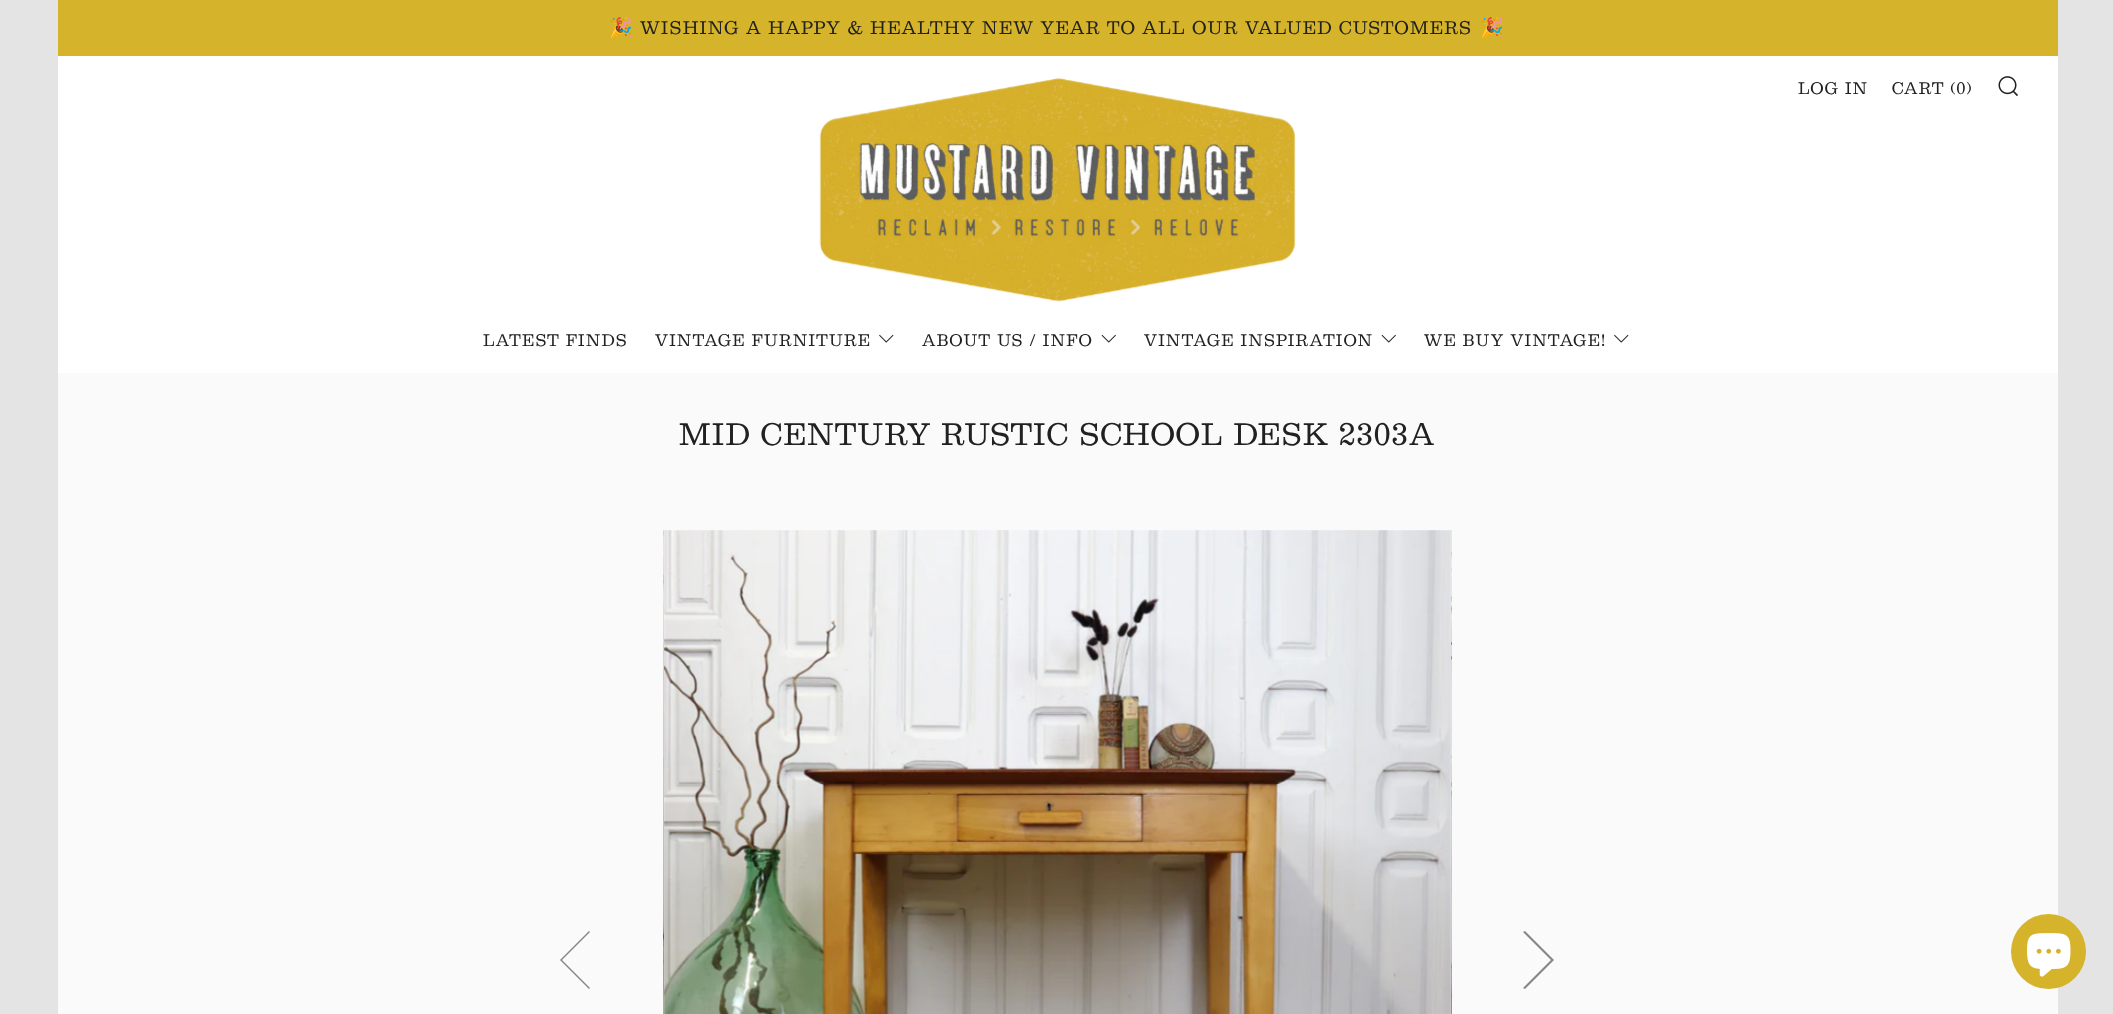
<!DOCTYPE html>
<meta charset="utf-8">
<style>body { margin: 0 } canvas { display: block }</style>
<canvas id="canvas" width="2113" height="1014"></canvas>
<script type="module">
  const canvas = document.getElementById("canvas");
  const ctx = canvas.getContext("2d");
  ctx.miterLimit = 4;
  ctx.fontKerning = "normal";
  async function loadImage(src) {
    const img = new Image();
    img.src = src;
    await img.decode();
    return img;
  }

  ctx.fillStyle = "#e4e4e4";
  ctx.fillRect(0, 0, 2113, 1014);
  ctx.fillStyle = "#ffffff";
  ctx.fillRect(58, 56, 2000, 317);
  ctx.fillStyle = "#d5b32a";
  ctx.fillRect(58, 0, 2000, 56);
  ctx.letterSpacing = "1.25px";
  ctx.font = "19.1px Noto Color Emoji";
  ctx.fillStyle = "#212121";
  ctx.fillText("🎉", 609, 34);
  ctx.font = "19.1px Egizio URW";
  ctx.fillText("WISHING A HAPPY & HEALTHY NEW YEAR TO ALL OUR VALUED CUSTOMERS", 640, 34);
  ctx.font = "19.1px Noto Color Emoji";
  ctx.fillText("🎉", 1480, 34);
  ctx.drawImage(await loadImage("img1.png"), 819, 78, 477, 224);
  ctx.font = "17.5px Egizio URW";
  ctx.fillText("LOG IN", 1798, 94);
  ctx.fillText("CART (0)", 1892, 94);
  ctx.drawImage(await loadImage("img2.png"), 1998, 76, 20, 20);
  ctx.fillText("LATEST FINDS", 483, 346);
  ctx.fillText("VINTAGE FURNITURE", 655, 346);
  ctx.drawImage(await loadImage("img3.png"), 879, 334, 15, 9);
  ctx.fillText("ABOUT US / INFO", 922, 346);
  ctx.drawImage(await loadImage("img4.png"), 1101, 334, 15, 9);
  ctx.fillText("VINTAGE INSPIRATION", 1144, 346);
  ctx.drawImage(await loadImage("img4.png"), 1381, 334, 15, 9);
  ctx.fillText("WE BUY VINTAGE!", 1424, 346);
  ctx.drawImage(await loadImage("img3.png"), 1614, 334, 15, 9);
  ctx.fillStyle = "#fafafa";
  ctx.fillRect(58, 373, 2000, 641);
  ctx.font = "32.5px Egizio URW";
  ctx.fillStyle = "#212121";
  ctx.fillText("MID CENTURY RUSTIC SCHOOL DESK 2303A", 679, 445);
  ctx.fillStyle = "#868686";
  ctx.beginPath();
  ctx.moveTo(590, 932);
  ctx.lineTo(589, 931);
  ctx.lineTo(560, 960);
  ctx.lineTo(589, 989);
  ctx.lineTo(590, 988);
  ctx.lineTo(562, 960);
  ctx.closePath();
  ctx.fill();
  ctx.drawImage(await loadImage("img5.png"), 663, 530, 1, 484);
  ctx.drawImage(await loadImage("img6.png"), 664, 530, 788, 484);
  ctx.drawImage(await loadImage("img7.png"), 1451, 552, 1, 462);
  ctx.beginPath();
  ctx.moveTo(1523, 988);
  ctx.lineTo(1525, 989);
  ctx.lineTo(1554, 960);
  ctx.lineTo(1525, 931);
  ctx.lineTo(1523, 932);
  ctx.lineTo(1551, 960);
  ctx.closePath();
  ctx.fill();
  ctx.fillStyle = "#d5b32a";
  ctx.beginPath();
  ctx.arc(2048.5, 951.5, 37.5, 0, Math.PI * 2);
  ctx.fill();
  ctx.drawImage(await loadImage("img8.png"), 2027, 933, 44, 44);
</script>
